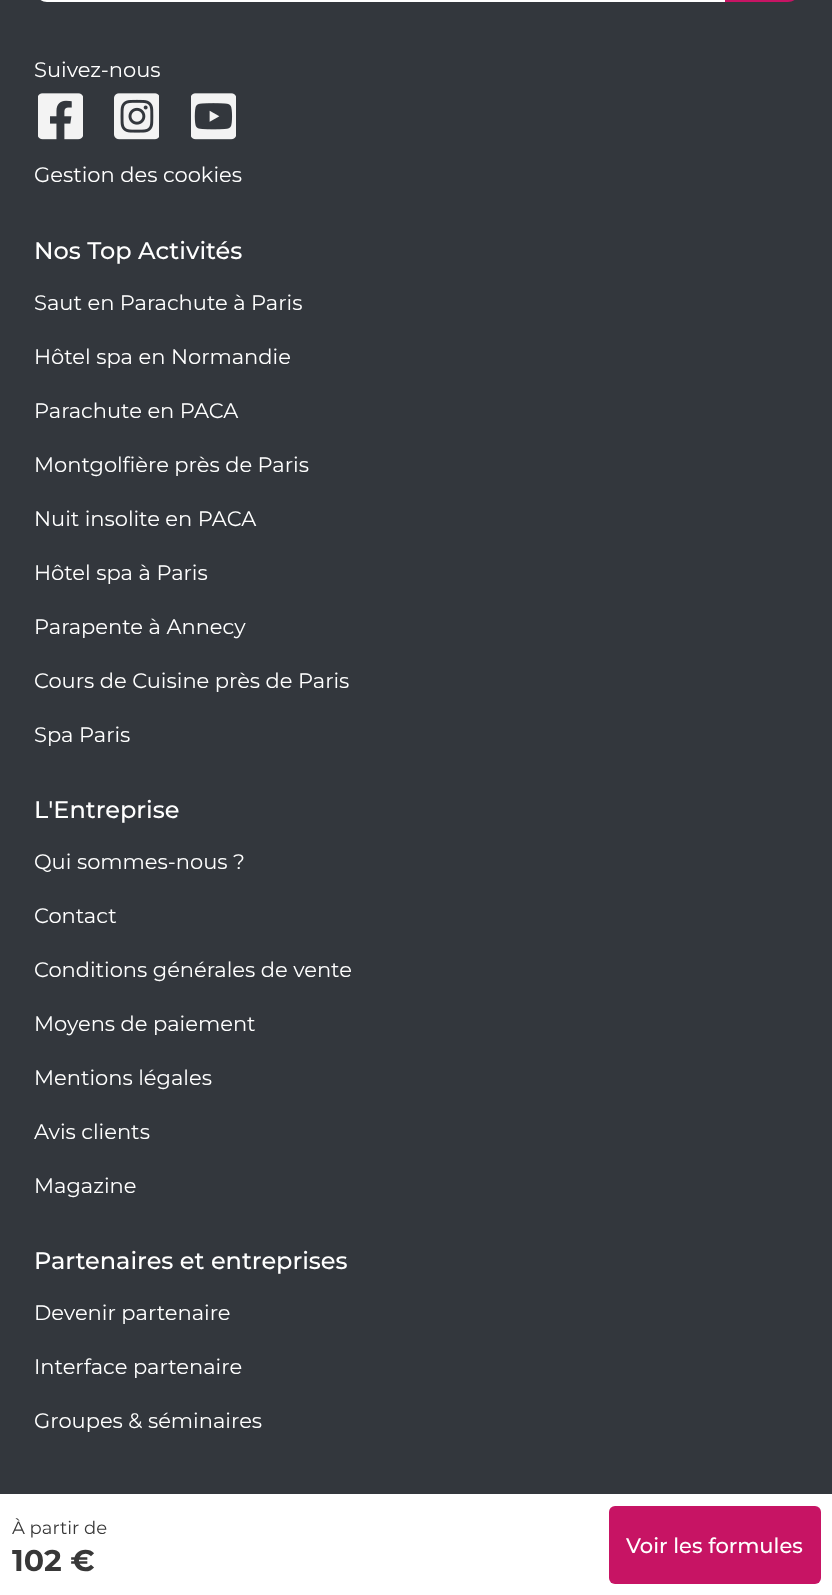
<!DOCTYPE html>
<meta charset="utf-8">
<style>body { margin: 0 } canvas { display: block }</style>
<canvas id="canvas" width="832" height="1595"></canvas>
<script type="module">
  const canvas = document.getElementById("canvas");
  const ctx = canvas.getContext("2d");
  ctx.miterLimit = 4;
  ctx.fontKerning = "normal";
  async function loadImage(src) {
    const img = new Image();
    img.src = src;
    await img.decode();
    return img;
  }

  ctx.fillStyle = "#33373d";
  ctx.fillRect(0, 0, 832, 1595);
  ctx.fillStyle = "#ffffff";
  ctx.beginPath();
  ctx.moveTo(47, -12);
  ctx.lineTo(725, -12);
  ctx.lineTo(725, 2);
  ctx.lineTo(47, 2);
  ctx.bezierCurveTo(40.5, 2, 35, -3.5, 35, -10);
  ctx.lineTo(35, 0);
  ctx.bezierCurveTo(35, -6.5, 40.5, -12, 47, -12);
  ctx.closePath();
  ctx.fill();
  ctx.fillStyle = "#c71464";
  ctx.beginPath();
  ctx.moveTo(725, -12);
  ctx.lineTo(788, -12);
  ctx.bezierCurveTo(794.5, -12, 800, -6.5, 800, 0);
  ctx.lineTo(800, -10);
  ctx.bezierCurveTo(800, -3.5, 794.5, 2, 788, 2);
  ctx.lineTo(725, 2);
  ctx.closePath();
  ctx.fill();
  ctx.font = "21px Montserrat";
  ctx.fillStyle = "#ffffff";
  ctx.fillText("Suivez-nous", 34, 77);
  ctx.drawImage(await loadImage("img1.png"), 38, 93, 45, 47);
  ctx.drawImage(await loadImage("img2.png"), 114, 93, 45, 47);
  ctx.drawImage(await loadImage("img3.png"), 191, 93, 45, 47);
  ctx.fillText("Gestion des cookies", 34, 182);
  ctx.font = "500 24px Montserrat";
  ctx.fillText("Nos Top Activités", 34, 259);
  ctx.font = "21px Montserrat";
  ctx.fillText("Saut en Parachute à Paris", 34, 310);
  ctx.fillText("Hôtel spa en Normandie", 34, 364);
  ctx.fillText("Parachute en PACA", 34, 418);
  ctx.fillText("Montgolfière près de Paris", 34, 472);
  ctx.fillText("Nuit insolite en PACA", 34, 526);
  ctx.fillText("Hôtel spa à Paris", 34, 580);
  ctx.fillText("Parapente à Annecy", 34, 634);
  ctx.fillText("Cours de Cuisine près de Paris", 34, 688);
  ctx.fillText("Spa Paris", 34, 742);
  ctx.font = "500 24px Montserrat";
  ctx.fillText("L'Entreprise", 34, 818);
  ctx.font = "21px Montserrat";
  ctx.fillText("Qui sommes-nous ?", 34, 869);
  ctx.fillText("Contact", 34, 923);
  ctx.fillText("Conditions générales de vente", 34, 977);
  ctx.fillText("Moyens de paiement", 34, 1031);
  ctx.fillText("Mentions légales", 34, 1085);
  ctx.fillText("Avis clients", 34, 1139);
  ctx.fillText("Magazine", 34, 1193);
  ctx.font = "500 24px Montserrat";
  ctx.fillText("Partenaires et entreprises", 34, 1269);
  ctx.font = "21px Montserrat";
  ctx.fillText("Devenir partenaire", 34, 1320);
  ctx.fillText("Interface partenaire", 34, 1374);
  ctx.fillText("Groupes & séminaires", 34, 1428);
  ctx.fillRect(0, 1494, 832, 101);
  ctx.font = "18px Montserrat";
  ctx.fillStyle = "#383838";
  ctx.fillText("À partir de", 12, 1534);
  ctx.font = "bold 30px Montserrat";
  ctx.fillText("102 €", 12, 1571);
  ctx.fillStyle = "#c71464";
  ctx.beginPath();
  ctx.roundRect(609, 1506, 212, 78, 6);
  ctx.fill();
  ctx.font = "500 21px Montserrat";
  ctx.fillStyle = "#ffffff";
  ctx.fillText("Voir les formules", 626, 1553);
</script>
